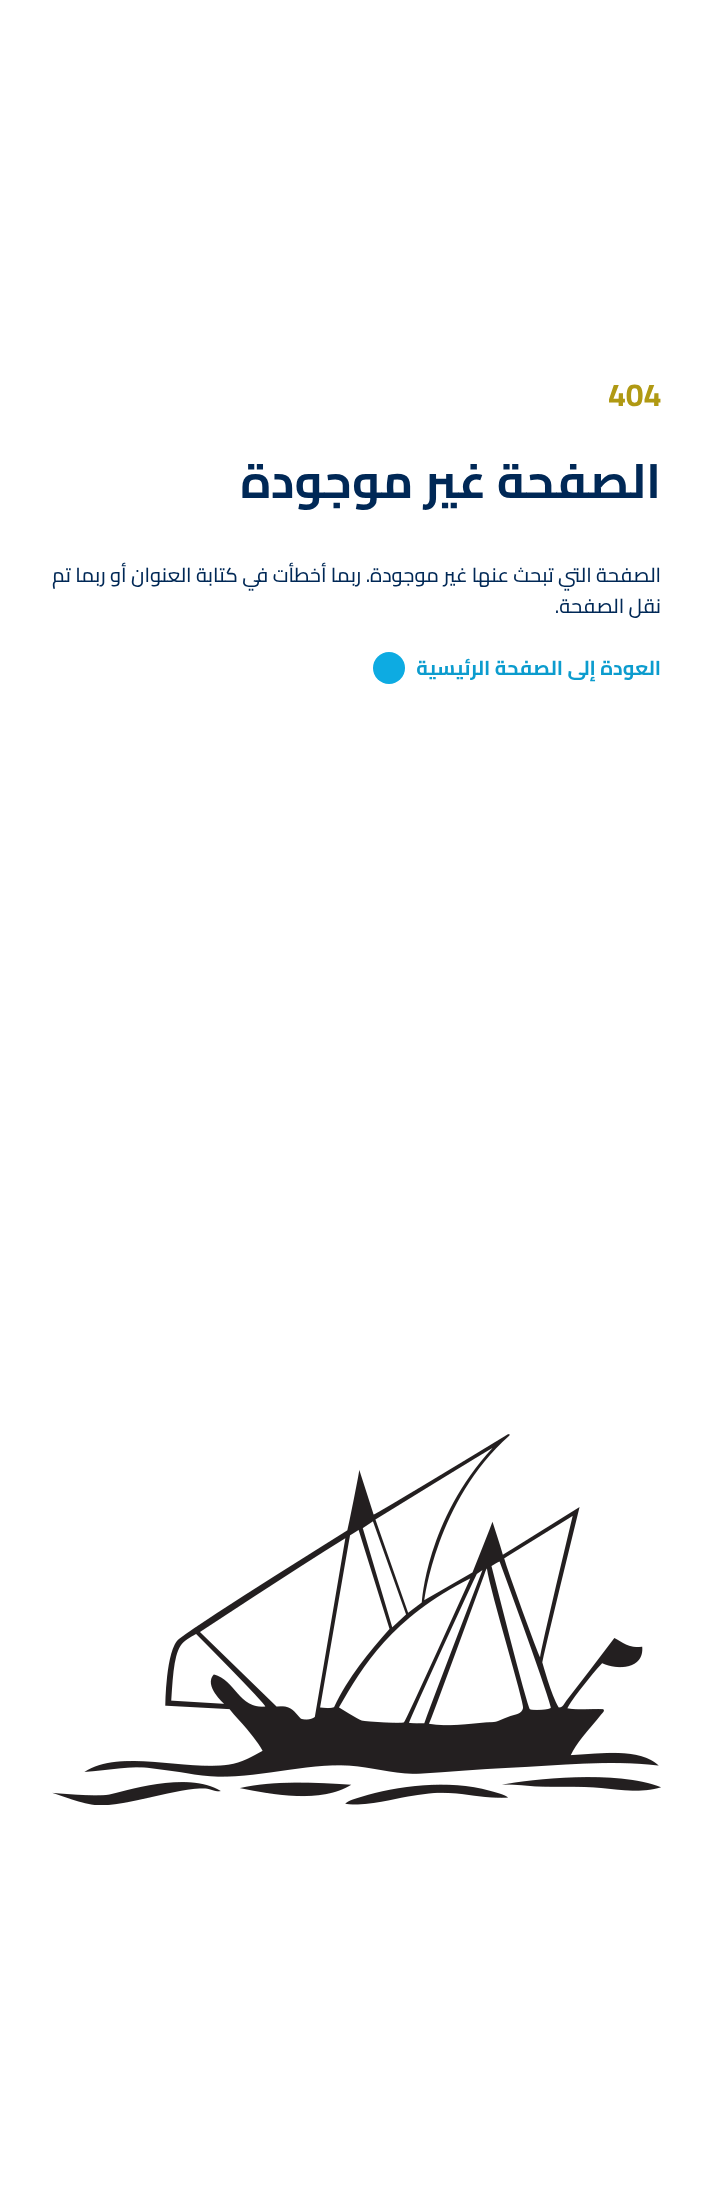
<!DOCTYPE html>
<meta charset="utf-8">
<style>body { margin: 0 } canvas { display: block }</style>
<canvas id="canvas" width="713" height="2189"></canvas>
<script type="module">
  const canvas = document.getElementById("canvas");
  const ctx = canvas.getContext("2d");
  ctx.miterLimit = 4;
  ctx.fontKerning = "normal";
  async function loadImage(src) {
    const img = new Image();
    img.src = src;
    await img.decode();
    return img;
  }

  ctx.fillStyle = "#ffffff";
  ctx.fillRect(0, 0, 713, 2189);
  ctx.font = "bold 32px Cairo";
  ctx.fillStyle = "#b09913";
  ctx.fillText("404", 608, 406);
  ctx.direction = "rtl";
  ctx.font = "bold 48px Cairo";
  ctx.fillStyle = "#002856";
  ctx.fillText("الصفحة غير موجودة", 661, 498);
  ctx.font = "500 20px Cairo";
  ctx.fillText("الصفحة التي تبحث عنها غير موجودة. ربما أخطأت في كتابة العنوان أو ربما تم", 661, 582);
  ctx.fillText("نقل الصفحة.", 661, 613);
  ctx.font = "bold 20px Cairo";
  ctx.fillStyle = "#0c9cce";
  ctx.fillText("العودة إلى الصفحة الرئيسية", 661, 675);
  ctx.fillStyle = "#0dabe2";
  ctx.beginPath();
  ctx.arc(389, 668, 16, 0, Math.PI * 2);
  ctx.fill();
  ctx.drawImage(await loadImage("img1.png"), 52, 1434, 609, 371);
</script>
